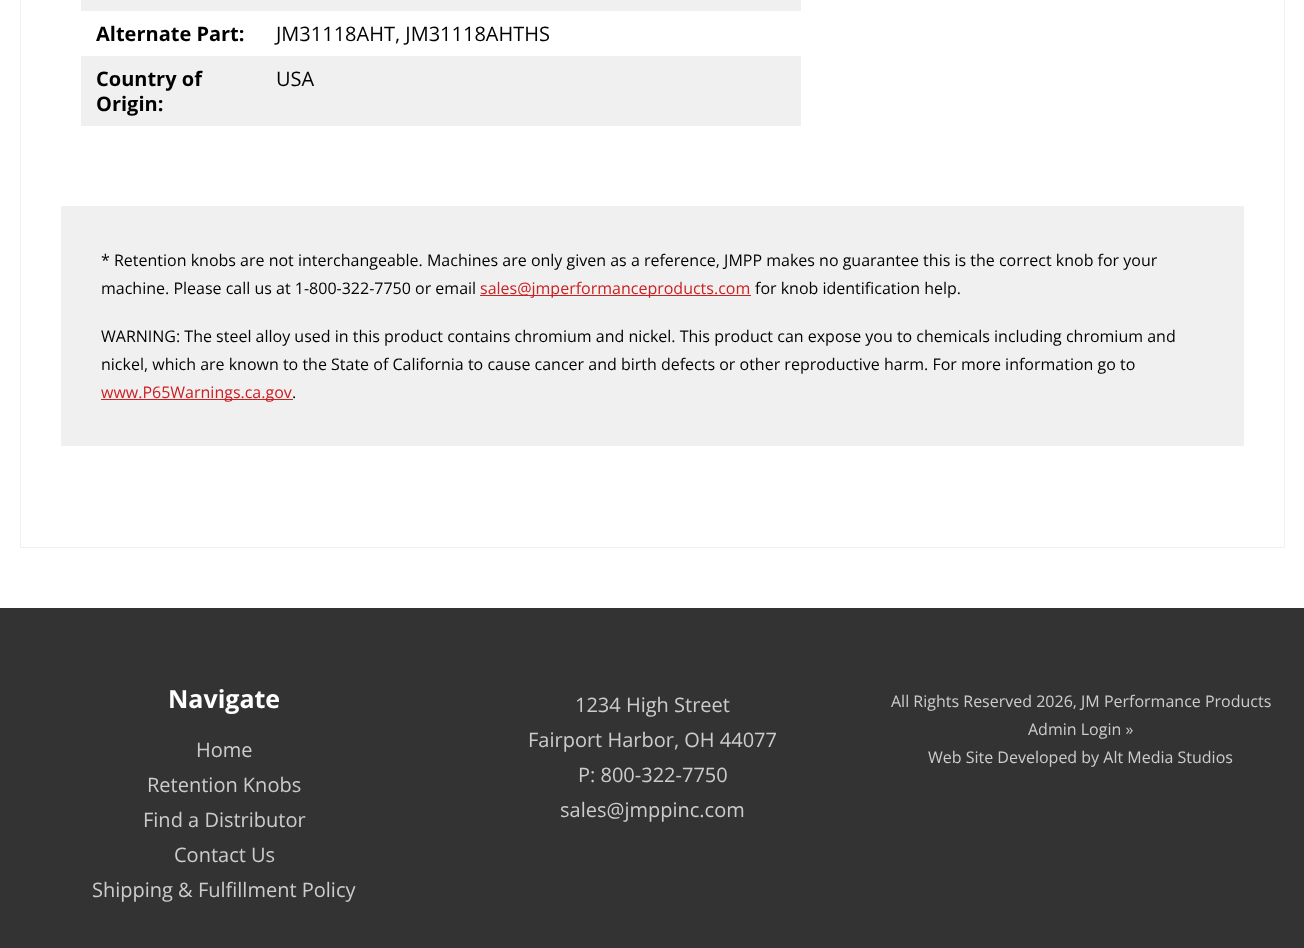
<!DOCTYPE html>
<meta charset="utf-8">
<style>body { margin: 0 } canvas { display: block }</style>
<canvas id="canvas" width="1304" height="948"></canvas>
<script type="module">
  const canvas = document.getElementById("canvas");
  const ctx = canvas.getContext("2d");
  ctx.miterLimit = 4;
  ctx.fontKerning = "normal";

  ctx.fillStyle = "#ffffff";
  ctx.fillRect(0, 0, 1304, 948);
  ctx.strokeStyle = "#f0f0f0";
  ctx.strokeRect(20.5, -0.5, 1264, 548);
  ctx.fillStyle = "#f0f0f0";
  ctx.fillRect(81, 0, 720, 11);
  ctx.font = "bold 20px Open Sans";
  ctx.fillStyle = "#000000";
  ctx.fillText("Alternate Part:", 96, 41);
  ctx.font = "20px Open Sans";
  ctx.fillText("JM31118AHT, JM31118AHTHS", 276, 41);
  ctx.fillStyle = "#f0f0f0";
  ctx.fillRect(81, 56, 720, 70);
  ctx.font = "bold 20px Open Sans";
  ctx.fillStyle = "#000000";
  ctx.fillText("Country of", 96, 86);
  ctx.fillText("Origin:", 96, 111);
  ctx.font = "20px Open Sans";
  ctx.fillText("USA", 276, 86);
  ctx.fillStyle = "#f0f0f0";
  ctx.fillRect(61, 206, 1183, 240);
  ctx.font = "16px Open Sans";
  ctx.fillStyle = "#000000";
  ctx.fillText("* Retention knobs are not interchangeable. Machines are only given as a reference, JMPP makes no guarantee this is the correct knob for your", 101, 266);
  ctx.fillText("machine. Please call us at 1-800-322-7750 or email", 101, 294);
  ctx.fillStyle = "#cc2023";
  ctx.fillRect(480, 295, 271, 1);
  ctx.fillText("sales@jmperformanceproducts.com", 480, 294);
  ctx.fillStyle = "#000000";
  ctx.fillText("for knob identification help.", 755, 294);
  ctx.fillText("WARNING: The steel alloy used in this product contains chromium and nickel. This product can expose you to chemicals including chromium and", 101, 342);
  ctx.fillText("nickel, which are known to the State of California to cause cancer and birth defects or other reproductive harm. For more information go to", 101, 370);
  ctx.fillStyle = "#cc2023";
  ctx.fillRect(101, 399, 192, 1);
  ctx.fillText("www.P65Warnings.ca.gov", 101, 398);
  ctx.fillStyle = "#000000";
  ctx.fillText(".", 292, 398);
  ctx.fillStyle = "#333333";
  ctx.fillRect(0, 608, 1304, 340);
  ctx.font = "bold 25px Open Sans";
  ctx.fillStyle = "#ffffff";
  ctx.fillText("Navigate", 168, 708);
  ctx.font = "20px Open Sans";
  ctx.fillStyle = "#cccccc";
  ctx.fillText("Home", 196, 757);
  ctx.fillText("Retention Knobs", 147, 792);
  ctx.fillText("Find a Distributor", 143, 827);
  ctx.fillText("Contact Us", 174, 862);
  ctx.fillText("Shipping & Fulfillment Policy", 92, 897);
  ctx.fillText("1234 High Street", 575, 712);
  ctx.fillText("Fairport Harbor, OH 44077", 528, 747);
  ctx.fillText("P: 800-322-7750", 578, 782);
  ctx.fillText("sales@jmppinc.com", 560, 817);
  ctx.font = "16px Open Sans";
  ctx.fillText("All Rights Reserved 2026, JM Performance Products", 891, 707);
  ctx.fillText("Admin Login »", 1028, 735);
  ctx.fillText("Web Site Developed by Alt Media Studios", 928, 763);
</script>
